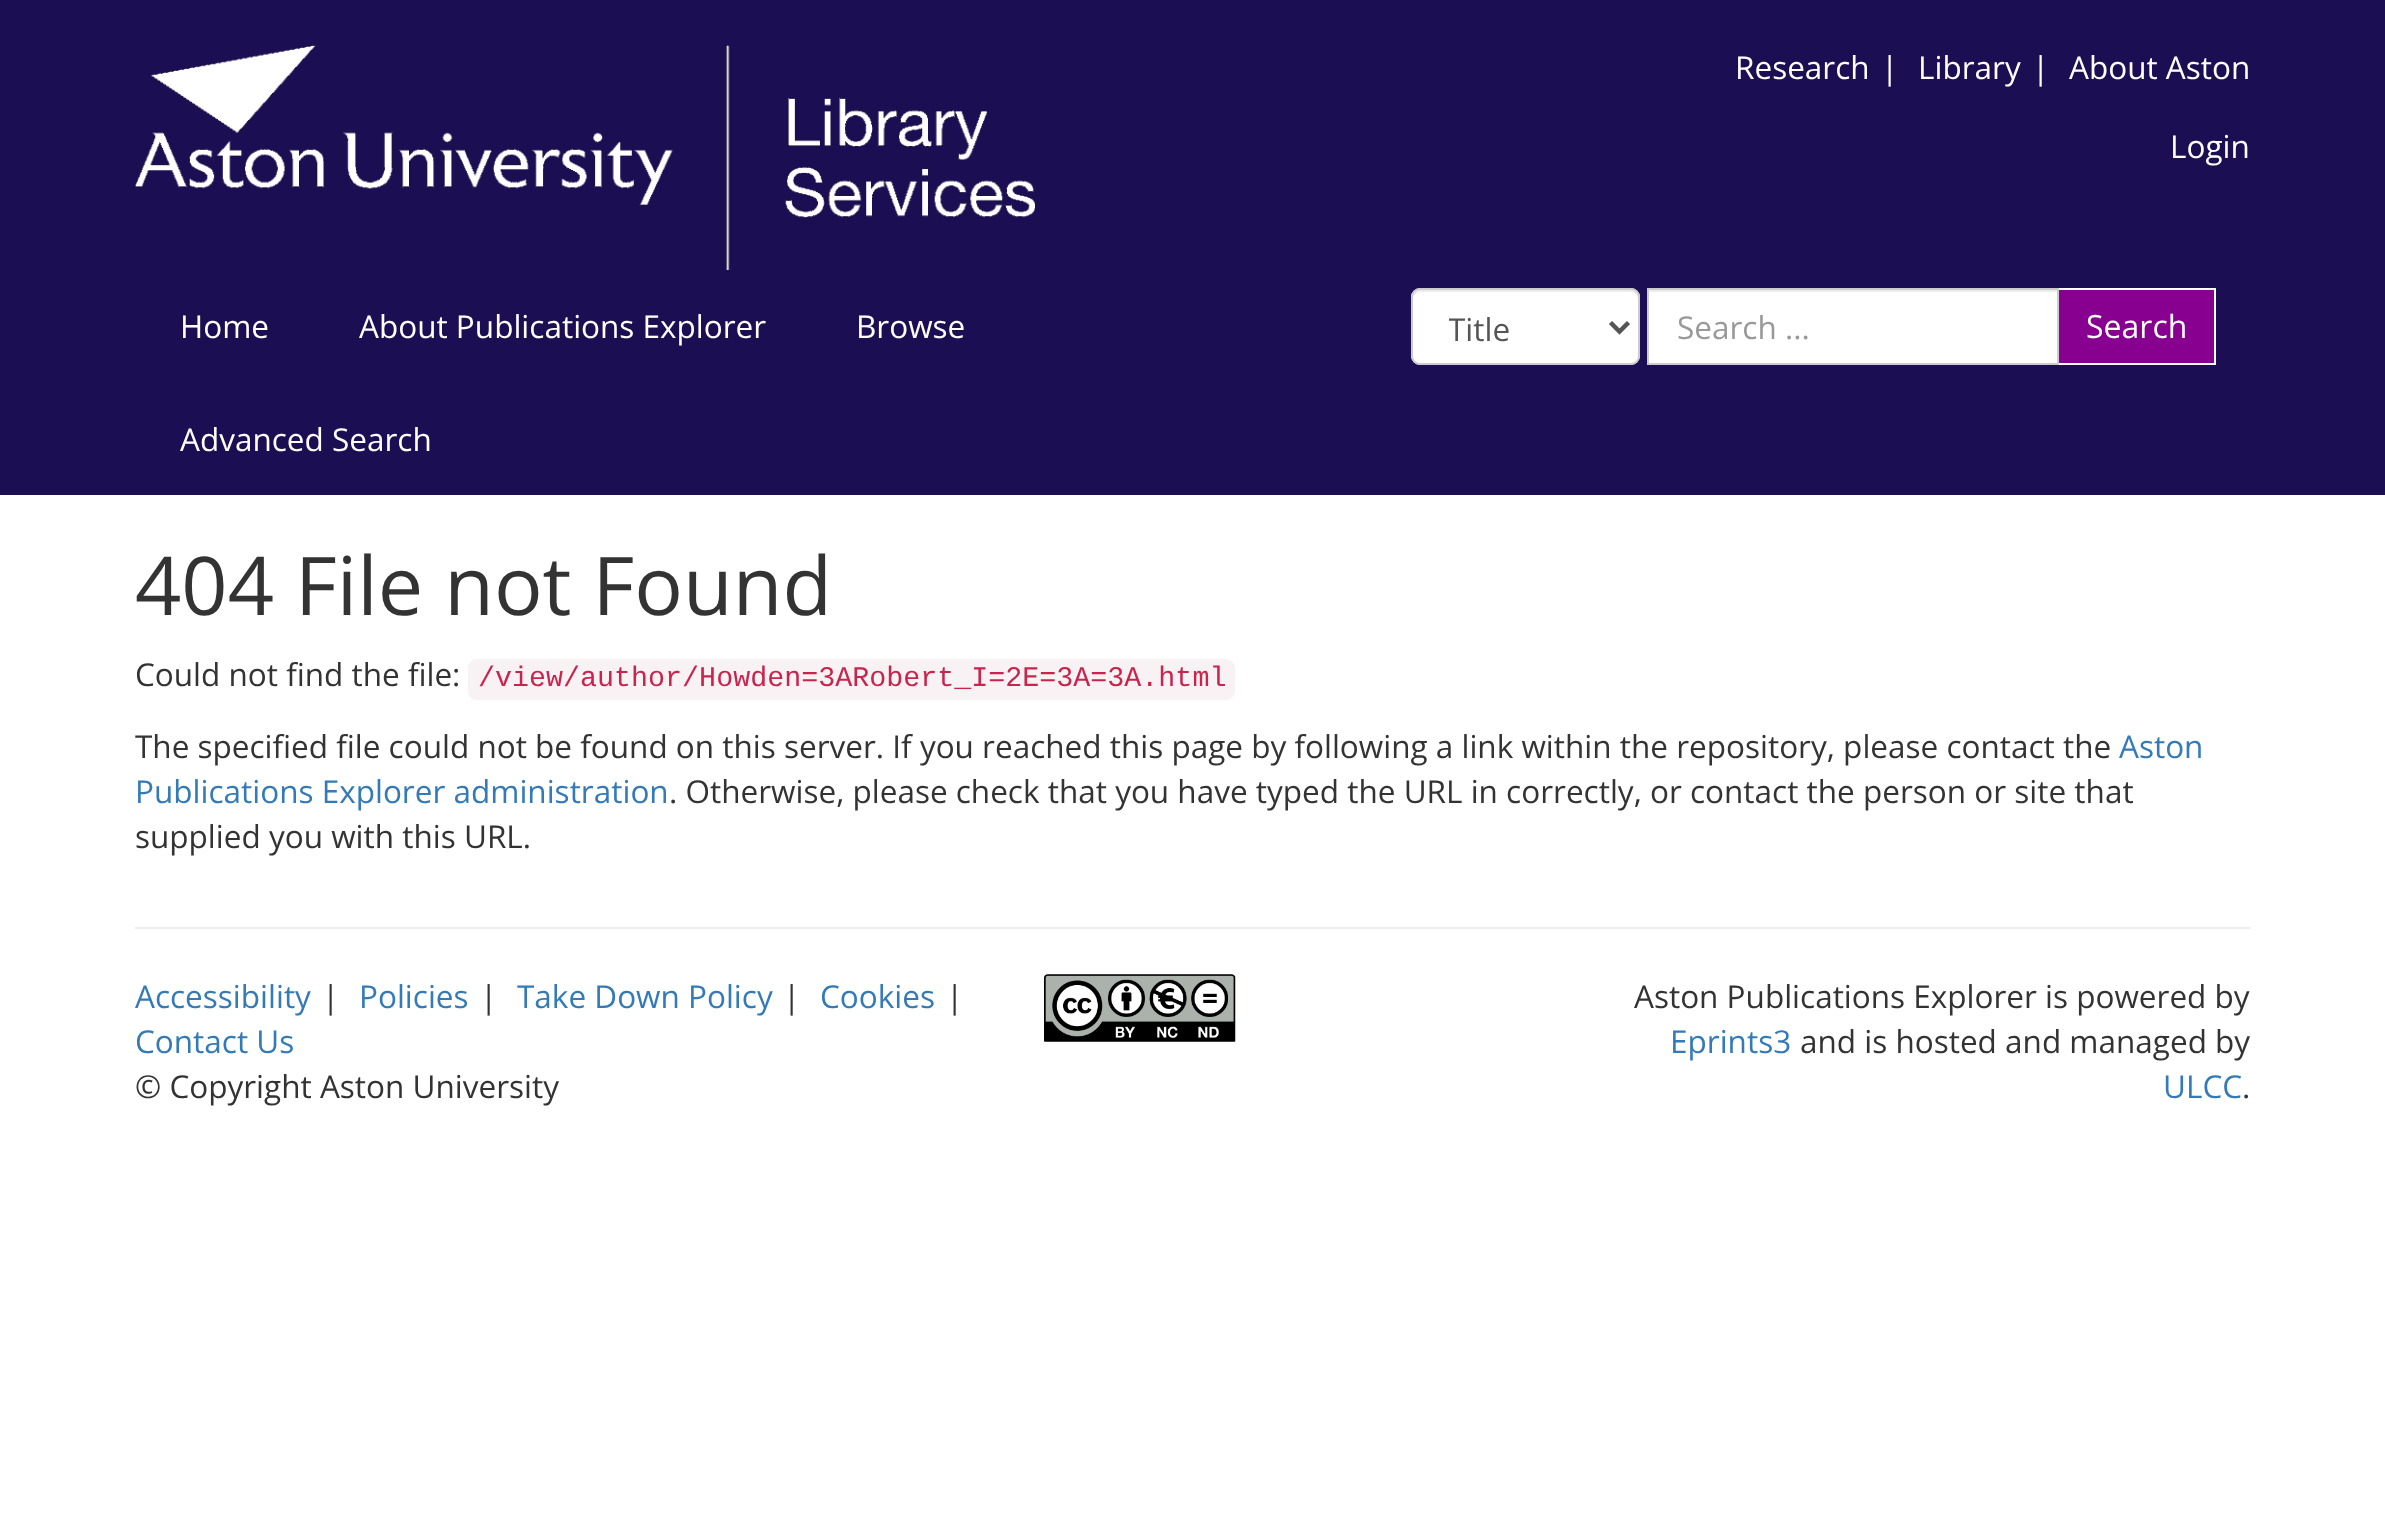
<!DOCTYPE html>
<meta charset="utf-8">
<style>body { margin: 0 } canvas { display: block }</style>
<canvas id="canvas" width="2385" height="1540"></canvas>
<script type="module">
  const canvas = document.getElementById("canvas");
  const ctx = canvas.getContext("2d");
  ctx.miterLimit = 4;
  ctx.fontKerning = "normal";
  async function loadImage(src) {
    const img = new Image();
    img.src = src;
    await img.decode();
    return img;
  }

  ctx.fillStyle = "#ffffff";
  ctx.fillRect(0, 0, 2385, 1540);
  ctx.fillStyle = "#1c0e52";
  ctx.fillRect(0, 0, 2385, 495);
  ctx.drawImage(await loadImage("img1.png"), 135, 45, 900, 225);
  ctx.font = "31.5px Open Sans";
  ctx.fillStyle = "#ffffff";
  ctx.fillText("Research", 1735, 79);
  ctx.fillText("|", 1881, 79);
  ctx.fillText("Library", 1918, 79);
  ctx.fillText("|", 2032, 79);
  ctx.fillText("About Aston", 2069, 79);
  ctx.fillText("Login", 2170, 158);
  ctx.fillText("Home", 180, 338);
  ctx.fillText("About Publications Explorer", 359, 338);
  ctx.fillText("Browse", 856, 338);
  ctx.fillText("Advanced Search", 180, 451);
  ctx.beginPath();
  ctx.roundRect(1411, 288, 229, 77, 9);
  ctx.fill();
  ctx.fillStyle = "#ececec";
  ctx.beginPath();
  ctx.moveTo(1420, 292);
  ctx.lineTo(1631, 292);
  ctx.bezierCurveTo(1635, 292, 1638, 296, 1638, 299);
  ctx.lineTo(1638, 297);
  ctx.bezierCurveTo(1638, 293, 1635, 290, 1631, 290);
  ctx.lineTo(1420, 290);
  ctx.bezierCurveTo(1416, 290, 1413, 293, 1413, 297);
  ctx.lineTo(1413, 299);
  ctx.bezierCurveTo(1413, 296, 1416, 292, 1420, 292);
  ctx.closePath();
  ctx.fill();
  ctx.beginPath();
  ctx.roundRect(1412, 289, 227, 75, 8);
  ctx.strokeStyle = "#cccccc";
  ctx.lineWidth = 2;
  ctx.stroke();
  ctx.beginPath();
  ctx.moveTo(1610.5, 322.5);
  ctx.lineTo(1619.5, 331.5);
  ctx.lineTo(1628.5, 322.5);
  ctx.strokeStyle = "#555555";
  ctx.lineWidth = 4.5;
  ctx.stroke();
  ctx.save();
  ctx.beginPath();
  ctx.rect(1449, 304, 126, 47);
  ctx.clip();
  ctx.fillStyle = "#555555";
  ctx.fillText("Title", 1448, 341);
  ctx.restore();
  ctx.fillStyle = "#ffffff";
  ctx.fillRect(1649, 292, 408, 71);
  ctx.fillStyle = "#ececec";
  ctx.fillRect(1649, 290, 408, 2);
  ctx.fillStyle = "#87008f";
  ctx.beginPath();
  ctx.rect(2058, 289, 157, 75);
  ctx.fill();
  ctx.strokeStyle = "#ffffff";
  ctx.lineWidth = 2;
  ctx.stroke();
  ctx.strokeStyle = "#cccccc";
  ctx.strokeRect(1648, 289, 410, 75);
  ctx.fillStyle = "#999999";
  ctx.fillText("Search ...", 1677, 339);
  ctx.font = "32px Open Sans";
  ctx.fillStyle = "#ffffff";
  ctx.fillText("Search", 2086, 338);
  ctx.font = "81px Open Sans";
  ctx.fillStyle = "#333333";
  ctx.fillText("404 File not Found", 135, 615);
  ctx.font = "31.5px Open Sans";
  ctx.fillText("Could not find the file:", 135, 686);
  ctx.fillStyle = "#f9f2f4";
  ctx.beginPath();
  ctx.roundRect(468, 659, 767, 41, 9);
  ctx.fill();
  ctx.font = "28.35px Liberation Mono";
  ctx.fillStyle = "#c7254e";
  ctx.fillText("/view/author/Howden=3ARobert_I=2E=3A=3A.html", 478, 686);
  ctx.font = "31.5px Open Sans";
  ctx.fillStyle = "#333333";
  ctx.fillText("The specified file could not be found on this server. If you reached this page by following a link within the repository, please contact the", 135, 758);
  ctx.fillStyle = "#337ab7";
  ctx.fillText("Aston", 2119, 758);
  ctx.fillText("Publications Explorer administration", 135, 803);
  ctx.fillStyle = "#333333";
  ctx.fillText(". Otherwise, please check that you have typed the URL in correctly, or contact the person or site that", 669, 803);
  ctx.fillText("supplied you with this URL.", 135, 848);
  ctx.fillStyle = "#eeeeee";
  ctx.fillRect(135, 927, 2115, 2);
  ctx.fillStyle = "#337ab7";
  ctx.fillText("Accessibility", 135, 1008);
  ctx.fillStyle = "#333333";
  ctx.fillText("|", 322, 1008);
  ctx.fillStyle = "#337ab7";
  ctx.fillText("Policies", 359, 1008);
  ctx.fillStyle = "#333333";
  ctx.fillText("|", 480, 1008);
  ctx.fillStyle = "#337ab7";
  ctx.fillText("Take Down Policy", 517, 1008);
  ctx.fillStyle = "#333333";
  ctx.fillText("|", 783, 1008);
  ctx.fillStyle = "#337ab7";
  ctx.fillText("Cookies", 820, 1008);
  ctx.fillStyle = "#333333";
  ctx.fillText("|", 946, 1008);
  ctx.fillStyle = "#337ab7";
  ctx.fillText("Contact Us", 135, 1053);
  ctx.fillStyle = "#333333";
  ctx.fillText("© Copyright Aston University", 135, 1098);
  ctx.drawImage(await loadImage("img2.png"), 1044, 974, 192, 68);
  ctx.fillText("Aston Publications Explorer is powered by", 1634, 1008);
  ctx.fillStyle = "#337ab7";
  ctx.fillText("Eprints3", 1670, 1053);
  ctx.fillStyle = "#333333";
  ctx.fillText("and is hosted and managed by", 1800, 1053);
  ctx.fillStyle = "#337ab7";
  ctx.fillText("ULCC", 2163, 1098);
  ctx.fillStyle = "#333333";
  ctx.fillText(".", 2242, 1098);
</script>
